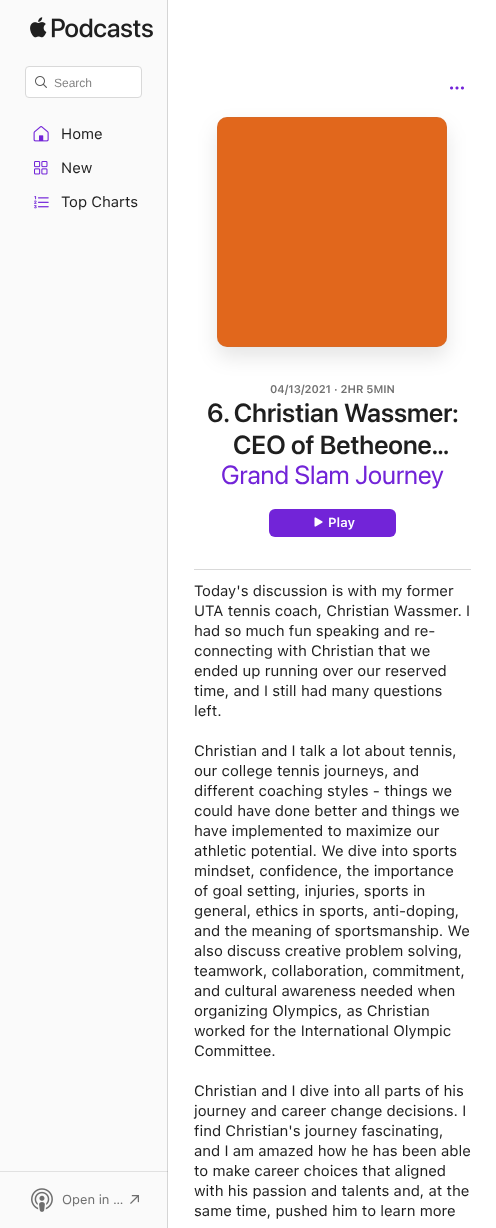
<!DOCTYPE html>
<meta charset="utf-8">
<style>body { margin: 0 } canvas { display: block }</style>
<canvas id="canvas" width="496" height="1228"></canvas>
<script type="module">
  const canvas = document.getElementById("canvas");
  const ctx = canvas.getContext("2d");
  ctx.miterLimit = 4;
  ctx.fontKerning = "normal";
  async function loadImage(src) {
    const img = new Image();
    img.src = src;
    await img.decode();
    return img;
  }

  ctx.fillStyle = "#ffffff";
  ctx.fillRect(0, 0, 496, 1228);
  ctx.fillStyle = "#fafafa";
  ctx.fillRect(0, 0, 167, 1228);
  ctx.fillStyle = "#e1e1e1";
  ctx.fillRect(0, 1171, 168, 1);
  ctx.fillStyle = "#d5d5d5";
  ctx.fillRect(167, 0, 1, 1228);
  ctx.fillStyle = "#c0c0c0";
  ctx.fillRect(167, 1171, 1, 1);
  ctx.drawImage(await loadImage("img1.png"), 30, 17, 123, 21);
  ctx.fillStyle = "#ffffff";
  ctx.beginPath();
  ctx.roundRect(25.5, 66.5, 116, 31, 3.5);
  ctx.fill();
  ctx.strokeStyle = "#d9d9d9";
  ctx.stroke();
  ctx.drawImage(await loadImage("img2.png"), 35, 76, 12, 12);
  ctx.font = "12px Liberation Sans";
  ctx.fillStyle = "#858585";
  ctx.fillText("Search", 54, 87);
  ctx.drawImage(await loadImage("img3.png"), 33, 126, 16, 16);
  ctx.font = "15px 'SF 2'";
  ctx.fillStyle = "#1f1f1f";
  ctx.fillText("Home", 61, 139);
  ctx.drawImage(await loadImage("img4.png"), 34, 161, 14, 14);
  ctx.fillText("New", 61, 173);
  ctx.drawImage(await loadImage("img5.png"), 34, 196, 15, 13);
  ctx.fillText("Top Charts", 61, 207);
  ctx.drawImage(await loadImage("img6.png"), 31, 1188, 22, 24);
  ctx.font = "13px 'SF 2'";
  ctx.fillStyle = "#707070";
  ctx.fillText("Open in …", 62, 1204);
  ctx.drawImage(await loadImage("img7.png"), 130, 1195, 9, 9);
  ctx.drawImage(await loadImage("img8.png"), 450, 86, 14, 4);
  ctx.fillStyle = "rgba(0, 0, 0, 0.1)";
  ctx.filter = "blur(10px)";
  ctx.beginPath();
  ctx.roundRect(217, 127, 230, 230, 10);
  ctx.fill();
  ctx.filter = "none";
  ctx.fillStyle = "#e1671c";
  ctx.beginPath();
  ctx.roundRect(217, 117, 230, 230, 10);
  ctx.fill();
  ctx.beginPath();
  ctx.roundRect(217.5, 117.5, 229, 229, 9.5);
  ctx.strokeStyle = "rgba(128, 128, 128, 0.1)";
  ctx.stroke();
  ctx.font = "600 11px SF";
  ctx.fillStyle = "#707070";
  ctx.fillText("04/13/2021 · 2HR 5MIN", 270, 393);
  ctx.font = "600 26px 'SF 2'";
  ctx.fillStyle = "#1f1f1f";
  ctx.fillText("6. Christian Wassmer:", 207, 422);
  ctx.fillText("CEO of Betheone…", 233, 454);
  ctx.font = "26px SF";
  ctx.fillStyle = "#7224d8";
  ctx.fillText("Grand Slam Journey", 221, 484);
  ctx.beginPath();
  ctx.roundRect(269, 509, 127, 28, 6);
  ctx.fill();
  ctx.drawImage(await loadImage("img9.png"), 314, 517, 9, 10);
  ctx.font = "600 13px SF";
  ctx.fillStyle = "#ffffff";
  ctx.fillText("Play", 328, 527);
  ctx.fillStyle = "#d9d9d9";
  ctx.fillRect(194, 569, 277, 1);
  ctx.font = "15px 'SF 2'";
  ctx.fillStyle = "#1f1f1f";
  ctx.fillText("Today's discussion is with my former", 194, 596);
  ctx.fillText("UTA tennis coach, Christian Wassmer. I", 194, 616);
  ctx.fillText("had so much fun speaking and re-", 194, 636);
  ctx.fillText("connecting with Christian that we", 194, 656);
  ctx.fillText("ended up running over our reserved", 194, 676);
  ctx.fillText("time, and I still had many questions", 194, 696);
  ctx.fillText("left.", 194, 716);
  ctx.fillText("Christian and I talk a lot about tennis,", 194, 756);
  ctx.fillText("our college tennis journeys, and", 194, 776);
  ctx.fillText("different coaching styles - things we", 194, 796);
  ctx.fillText("could have done better and things we", 194, 816);
  ctx.fillText("have implemented to maximize our", 194, 836);
  ctx.fillText("athletic potential. We dive into sports", 194, 856);
  ctx.fillText("mindset, confidence, the importance", 194, 876);
  ctx.fillText("of goal setting, injuries, sports in", 194, 896);
  ctx.fillText("general, ethics in sports, anti-doping,", 194, 916);
  ctx.fillText("and the meaning of sportsmanship. We", 194, 936);
  ctx.fillText("also discuss creative problem solving,", 194, 956);
  ctx.fillText("teamwork, collaboration, commitment,", 194, 976);
  ctx.fillText("and cultural awareness needed when", 194, 996);
  ctx.fillText("organizing Olympics, as Christian", 194, 1016);
  ctx.fillText("worked for the International Olympic", 194, 1036);
  ctx.fillText("Committee.", 194, 1056);
  ctx.fillText("Christian and I dive into all parts of his", 194, 1096);
  ctx.fillText("journey and career change decisions. I", 194, 1116);
  ctx.fillText("find Christian's journey fascinating,", 194, 1136);
  ctx.fillText("and I am amazed how he has been able", 194, 1156);
  ctx.fillText("to make career choices that aligned", 194, 1176);
  ctx.fillText("with his passion and talents and, at the", 194, 1196);
  ctx.fillText("same time, pushed him to learn more", 194, 1216);
</script>
